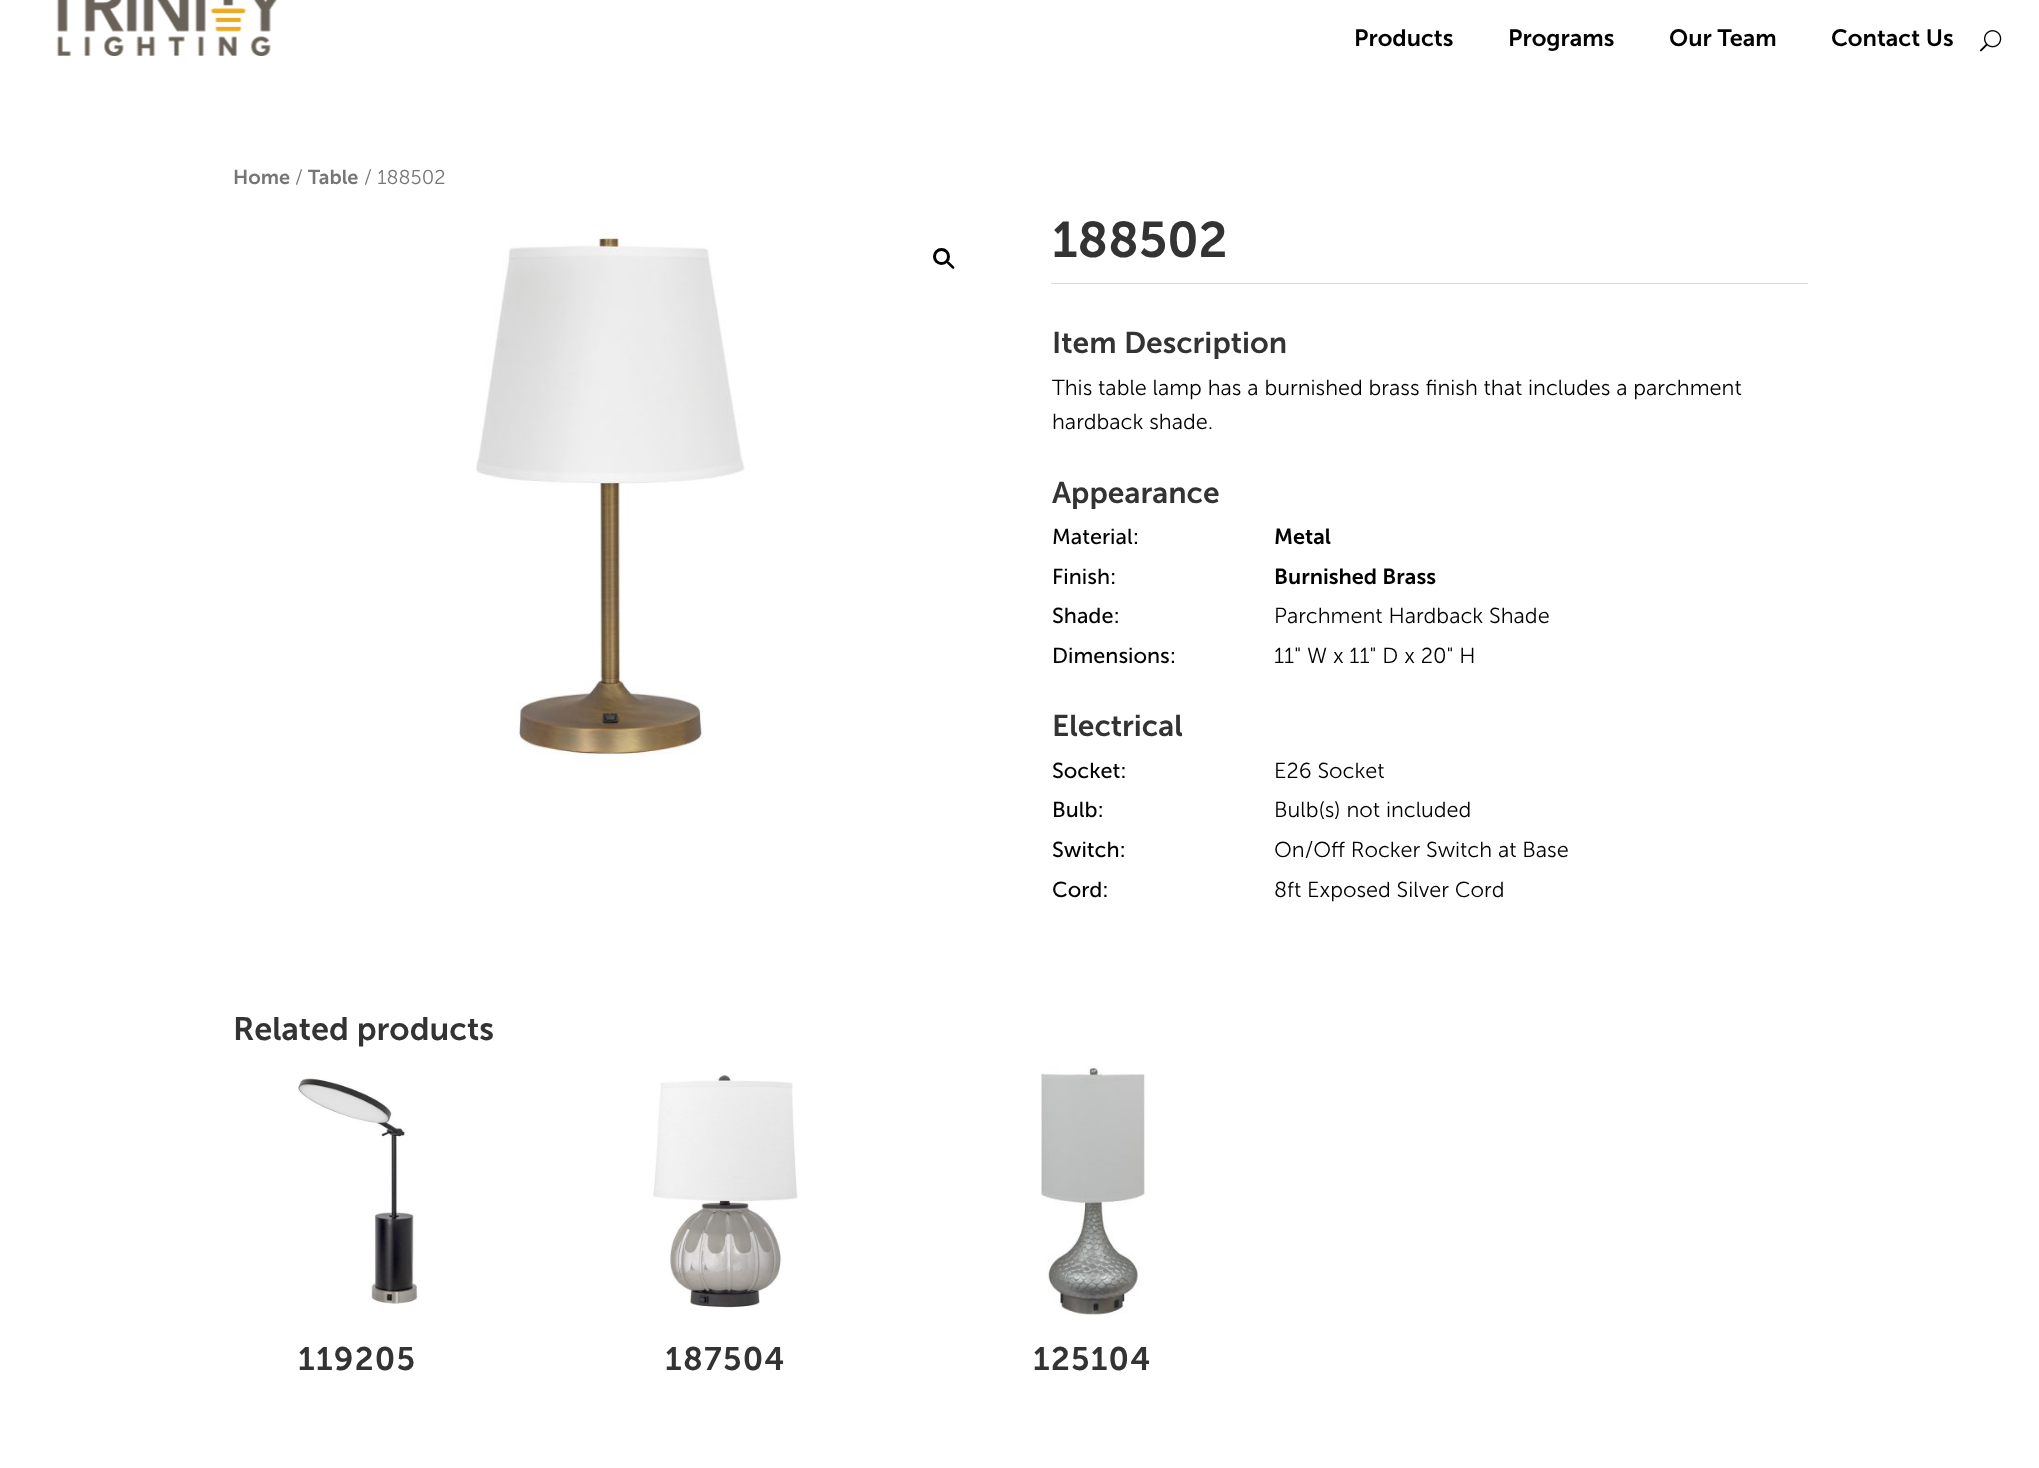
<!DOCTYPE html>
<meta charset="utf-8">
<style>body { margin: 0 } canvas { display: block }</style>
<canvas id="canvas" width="2039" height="1468"></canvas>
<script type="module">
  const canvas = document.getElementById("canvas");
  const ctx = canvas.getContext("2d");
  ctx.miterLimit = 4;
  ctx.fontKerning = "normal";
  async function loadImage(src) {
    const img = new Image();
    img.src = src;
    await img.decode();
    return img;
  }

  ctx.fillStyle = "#ffffff";
  ctx.fillRect(0, 0, 2039, 1468);
  ctx.drawImage(await loadImage("img1.png"), 56, 0, 221, 56);
  ctx.font = "600 23.5px 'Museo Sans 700'";
  ctx.fillStyle = "#000000";
  ctx.fillText("Products", 1354, 46);
  ctx.fillText("Programs", 1508, 46);
  ctx.fillText("Our Team", 1669, 46);
  ctx.fillText("Contact Us", 1831, 46);
  ctx.drawImage(await loadImage("img2.png"), 1980, 30, 22, 22);
  ctx.font = "600 20px 'Museo Sans 700'";
  ctx.fillStyle = "#767676";
  ctx.fillText("Home", 233, 184);
  ctx.font = "300 20px 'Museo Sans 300'";
  ctx.fillText("/", 295, 184);
  ctx.font = "600 20px 'Museo Sans 700'";
  ctx.fillText("Table", 308, 184);
  ctx.font = "300 20px 'Museo Sans 300'";
  ctx.fillText("/ 188502", 364, 184);
  ctx.drawImage(await loadImage("img3.png"), 476, 230, 269, 525);
  ctx.beginPath();
  ctx.arc(941.5, 256.5, 7, 0, Math.PI * 2);
  ctx.strokeStyle = "#000000";
  ctx.lineWidth = 3;
  ctx.stroke();
  ctx.fillStyle = "#000000";
  ctx.beginPath();
  ctx.moveTo(947, 261.5);
  ctx.bezierCurveTo(948.5, 260, 950.5, 263.5, 951.5, 264);
  ctx.bezierCurveTo(952, 265, 955.5, 267, 954, 268.5);
  ctx.bezierCurveTo(952.5, 270, 950.5, 266.5, 949.5, 266);
  ctx.bezierCurveTo(949, 265, 945.5, 263, 947, 261.5);
  ctx.closePath();
  ctx.fill();
  ctx.font = "600 50px 'Museo Sans 700'";
  ctx.fillStyle = "#333333";
  ctx.fillText("188502", 1052, 257);
  ctx.fillStyle = "#dadada";
  ctx.fillRect(1051, 283, 757, 1);
  ctx.font = "600 30px 'Museo Sans 700'";
  ctx.fillStyle = "#333333";
  ctx.fillText("Item Description", 1052, 353);
  ctx.font = "300 21.7px 'Museo Sans 300'";
  ctx.fillStyle = "#000000";
  ctx.fillText("This table lamp has a burnished brass finish that includes a parchment", 1052, 395);
  ctx.fillText("hardback shade.", 1052, 429);
  ctx.font = "600 30px 'Museo Sans 700'";
  ctx.fillStyle = "#333333";
  ctx.fillText("Appearance", 1052, 503);
  ctx.font = "21.7px 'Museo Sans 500'";
  ctx.fillStyle = "#000000";
  ctx.fillText("Material:", 1052, 544);
  ctx.font = "600 21.7px 'Museo Sans 700'";
  ctx.fillText("Metal", 1274, 544);
  ctx.font = "21.7px 'Museo Sans 500'";
  ctx.fillText("Finish:", 1052, 584);
  ctx.font = "600 21.7px 'Museo Sans 700'";
  ctx.fillText("Burnished Brass", 1274, 584);
  ctx.font = "21.7px 'Museo Sans 500'";
  ctx.fillText("Shade:", 1052, 623);
  ctx.font = "300 21.7px 'Museo Sans 300'";
  ctx.fillText("Parchment Hardback Shade", 1274, 623);
  ctx.font = "21.7px 'Museo Sans 500'";
  ctx.fillText("Dimensions:", 1052, 663);
  ctx.font = "300 21.7px 'Museo Sans 300'";
  ctx.fillText("11\" W x 11\" D x 20\" H", 1274, 663);
  ctx.font = "600 30px 'Museo Sans 700'";
  ctx.fillStyle = "#333333";
  ctx.fillText("Electrical", 1052, 736);
  ctx.font = "21.7px 'Museo Sans 500'";
  ctx.fillStyle = "#000000";
  ctx.fillText("Socket:", 1052, 778);
  ctx.font = "300 21.7px 'Museo Sans 300'";
  ctx.fillText("E26 Socket", 1274, 778);
  ctx.font = "21.7px 'Museo Sans 500'";
  ctx.fillText("Bulb:", 1052, 817);
  ctx.font = "300 21.7px 'Museo Sans 300'";
  ctx.fillText("Bulb(s) not included", 1274, 817);
  ctx.font = "21.7px 'Museo Sans 500'";
  ctx.fillText("Switch:", 1052, 857);
  ctx.font = "300 21.7px 'Museo Sans 300'";
  ctx.fillText("On/Off Rocker Switch at Base", 1274, 857);
  ctx.font = "21.7px 'Museo Sans 500'";
  ctx.fillText("Cord:", 1052, 897);
  ctx.font = "300 21.7px 'Museo Sans 300'";
  ctx.fillText("8ft Exposed Silver Cord", 1274, 897);
  ctx.font = "600 32.5px 'Museo Sans 700'";
  ctx.fillStyle = "#333333";
  ctx.fillText("Related products", 233, 1040);
  ctx.drawImage(await loadImage("img4.png"), 298, 1078, 120, 226);
  ctx.letterSpacing = "1.25px";
  ctx.fillText("119205", 298, 1370);
  ctx.drawImage(await loadImage("img5.png"), 653, 1074, 145, 234);
  ctx.fillText("187504", 665, 1370);
  ctx.drawImage(await loadImage("img6.png"), 1041, 1066, 106, 250);
  ctx.fillText("125104", 1033, 1370);
</script>
